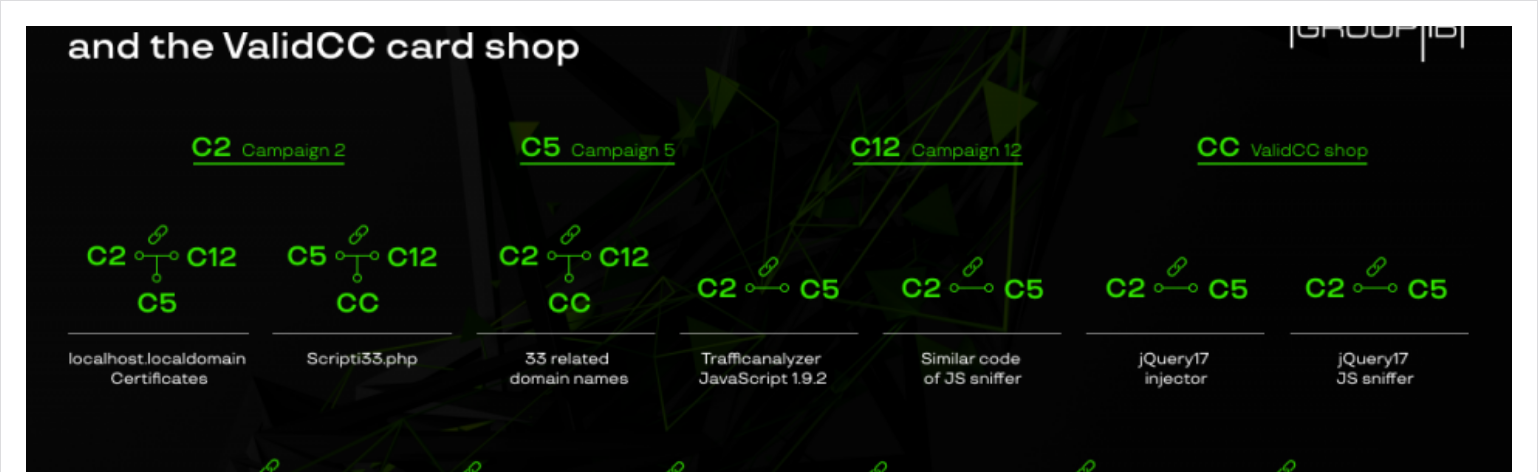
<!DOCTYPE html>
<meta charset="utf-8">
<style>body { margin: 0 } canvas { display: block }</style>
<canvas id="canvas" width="1538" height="472"></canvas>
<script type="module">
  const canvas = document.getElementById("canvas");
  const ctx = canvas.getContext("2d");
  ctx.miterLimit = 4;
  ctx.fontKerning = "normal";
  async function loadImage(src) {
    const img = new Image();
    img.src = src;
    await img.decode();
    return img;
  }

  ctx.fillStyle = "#ffffff";
  ctx.fillRect(0, 0, 1538, 472);
  ctx.strokeStyle = "#dcdcde";
  ctx.strokeRect(0.5, 0.5, 1537, 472);
  ctx.drawImage(await loadImage("img1.png"), 26, 26, 1486, 446);
</script>
